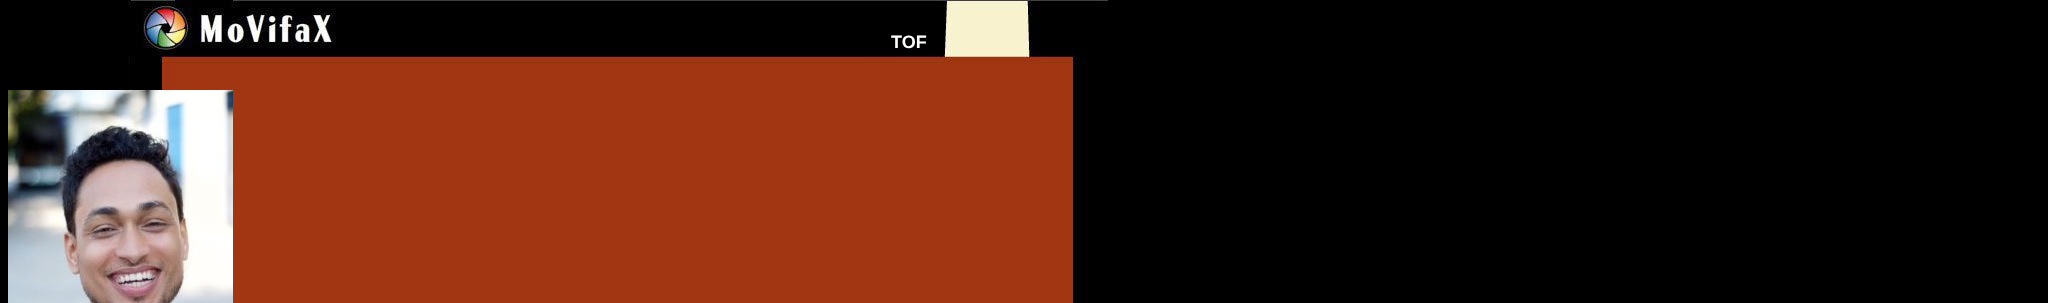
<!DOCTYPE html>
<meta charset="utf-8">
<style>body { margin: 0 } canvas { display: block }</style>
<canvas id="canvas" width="2048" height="303"></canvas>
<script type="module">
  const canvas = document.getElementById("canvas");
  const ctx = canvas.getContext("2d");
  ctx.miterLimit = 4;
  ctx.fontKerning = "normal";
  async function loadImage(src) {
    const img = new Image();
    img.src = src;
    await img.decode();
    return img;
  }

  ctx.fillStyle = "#000000";
  ctx.fillRect(0, 0, 2048, 303);
  ctx.drawImage(await loadImage("img1.png"), 128, 0, 980, 303);
  ctx.font = "bold 18px Liberation Sans";
  ctx.fillStyle = "#ffffff";
  ctx.fillText("TOF", 891, 48);
  ctx.drawImage(await loadImage("img2.png"), 8, 90, 225, 213);
</script>
